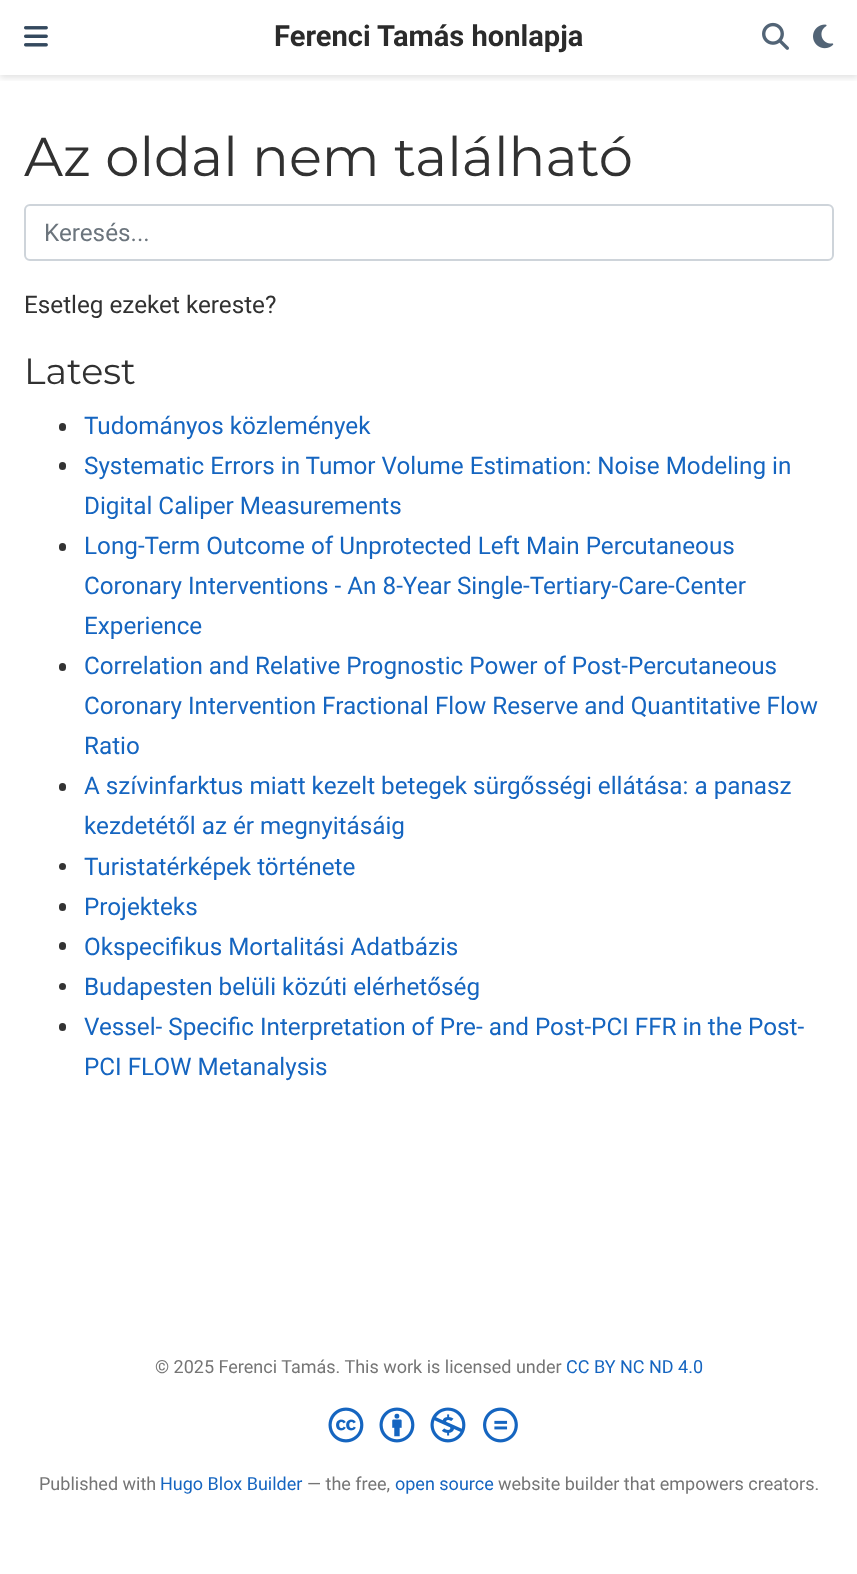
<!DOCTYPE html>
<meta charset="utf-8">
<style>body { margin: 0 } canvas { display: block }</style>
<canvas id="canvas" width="857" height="1574"></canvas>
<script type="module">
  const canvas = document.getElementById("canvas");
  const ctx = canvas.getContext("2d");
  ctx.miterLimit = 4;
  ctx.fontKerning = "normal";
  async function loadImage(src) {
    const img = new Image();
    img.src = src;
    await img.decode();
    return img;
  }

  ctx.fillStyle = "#ffffff";
  ctx.fillRect(0, 0, 857, 1574);
  ctx.save();
  ctx.beginPath();
  ctx.rect(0, 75, 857, 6);
  ctx.clip();
  ctx.fillStyle = "rgba(0, 0, 0, 0.11)";
  ctx.filter = "blur(3px)";
  ctx.beginPath();
  ctx.rect(0, 3, 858, 75);
  ctx.fill();
  ctx.filter = "none";
  ctx.restore();
  ctx.drawImage(await loadImage("img1.png"), 24, 26, 24, 21);
  ctx.font = "bold 29.1px Roboto";
  ctx.fillStyle = "#2b2b2b";
  ctx.fillText("Ferenci Tamás honlapja", 274, 46);
  ctx.drawImage(await loadImage("img2.png"), 762, 22, 27, 28);
  ctx.drawImage(await loadImage("img3.png"), 813, 24, 21, 25);
  ctx.font = "54.5px Montserrat";
  ctx.fillStyle = "#313131";
  ctx.fillText("Az oldal nem található", 24, 176);
  ctx.beginPath();
  ctx.roundRect(25, 205, 808, 55, 5);
  ctx.strokeStyle = "#ced4da";
  ctx.lineWidth = 2;
  ctx.stroke();
  ctx.font = "24.25px Roboto";
  ctx.fillStyle = "#6c757d";
  ctx.fillText("Keresés...", 44, 241);
  ctx.fillStyle = "#313131";
  ctx.fillText("Esetleg ezeket kereste?", 24, 313);
  ctx.font = "36.5px Montserrat";
  ctx.fillText("Latest", 24, 384);
  ctx.fillStyle = "#333333";
  ctx.beginPath();
  ctx.roundRect(59, 423, 7, 8, 3.5);
  ctx.fill();
  ctx.font = "24.25px Roboto";
  ctx.fillStyle = "#1565c0";
  ctx.fillText("Tudományos közlemények", 84, 434);
  ctx.fillStyle = "#333333";
  ctx.beginPath();
  ctx.roundRect(59, 462, 7, 8, 3.5);
  ctx.fill();
  ctx.fillStyle = "#1565c0";
  ctx.fillText("Systematic Errors in Tumor Volume Estimation: Noise Modeling in", 84, 474);
  ctx.fillText("Digital Caliper Measurements", 84, 514);
  ctx.fillStyle = "#333333";
  ctx.beginPath();
  ctx.roundRect(59, 543, 7, 8, 3.5);
  ctx.fill();
  ctx.fillStyle = "#1565c0";
  ctx.fillText("Long-Term Outcome of Unprotected Left Main Percutaneous", 84, 554);
  ctx.fillText("Coronary Interventions - An 8-Year Single-Tertiary-Care-Center", 84, 594);
  ctx.fillText("Experience", 84, 634);
  ctx.fillStyle = "#333333";
  ctx.beginPath();
  ctx.roundRect(59, 663, 7, 8, 3.5);
  ctx.fill();
  ctx.fillStyle = "#1565c0";
  ctx.fillText("Correlation and Relative Prognostic Power of Post-Percutaneous", 84, 674);
  ctx.fillText("Coronary Intervention Fractional Flow Reserve and Quantitative Flow", 84, 714);
  ctx.fillText("Ratio", 84, 754);
  ctx.fillStyle = "#333333";
  ctx.beginPath();
  ctx.roundRect(59, 783, 7, 8, 3.5);
  ctx.fill();
  ctx.fillStyle = "#1565c0";
  ctx.fillText("A szívinfarktus miatt kezelt betegek sürgősségi ellátása: a panasz", 84, 794);
  ctx.fillText("kezdetétől az ér megnyitásáig", 84, 834);
  ctx.fillStyle = "#333333";
  ctx.beginPath();
  ctx.arc(62.5, 866.5, 3.5, 0, Math.PI * 2);
  ctx.fill();
  ctx.fillStyle = "#1565c0";
  ctx.fillText("Turistatérképek története", 84, 875);
  ctx.fillStyle = "#333333";
  ctx.beginPath();
  ctx.roundRect(59, 903, 7, 8, 3.5);
  ctx.fill();
  ctx.fillStyle = "#1565c0";
  ctx.fillText("Projekteks", 84, 915);
  ctx.fillStyle = "#333333";
  ctx.beginPath();
  ctx.roundRect(59, 942, 7, 8, 3.5);
  ctx.fill();
  ctx.fillStyle = "#1565c0";
  ctx.fillText("Okspecifikus Mortalitási Adatbázis", 84, 955);
  ctx.fillStyle = "#333333";
  ctx.beginPath();
  ctx.arc(62.5, 986.5, 3.5, 0, Math.PI * 2);
  ctx.fill();
  ctx.fillStyle = "#1565c0";
  ctx.fillText("Budapesten belüli közúti elérhetőség", 84, 995);
  ctx.fillStyle = "#333333";
  ctx.beginPath();
  ctx.roundRect(59, 1023, 7, 8, 3.5);
  ctx.fill();
  ctx.fillStyle = "#1565c0";
  ctx.fillText("Vessel- Specific Interpretation of Pre- and Post-PCI FFR in the Post-", 84, 1035);
  ctx.fillText("PCI FLOW Metanalysis", 84, 1075);
  ctx.font = "18px Roboto";
  ctx.fillStyle = "#757575";
  ctx.fillText("© 2025 Ferenci Tamás. This work is licensed under", 155, 1373);
  ctx.fillStyle = "#1565c0";
  ctx.fillText("CC BY NC ND 4.0", 566, 1373);
  ctx.drawImage(await loadImage("img4.png"), 328, 1407, 36, 36);
  ctx.drawImage(await loadImage("img5.png"), 379, 1407, 36, 36);
  ctx.drawImage(await loadImage("img6.png"), 430, 1407, 36, 36);
  ctx.drawImage(await loadImage("img7.png"), 483, 1407, 35, 36);
  ctx.fillStyle = "#757575";
  ctx.fillText("Published with", 39, 1490);
  ctx.fillStyle = "#1565c0";
  ctx.fillText("Hugo Blox Builder", 160, 1490);
  ctx.fillStyle = "#757575";
  ctx.fillText("— the free,", 307, 1490);
  ctx.fillStyle = "#1565c0";
  ctx.fillText("open source", 395, 1490);
  ctx.fillStyle = "#757575";
  ctx.fillText("website builder that empowers creators.", 498, 1490);
</script>
